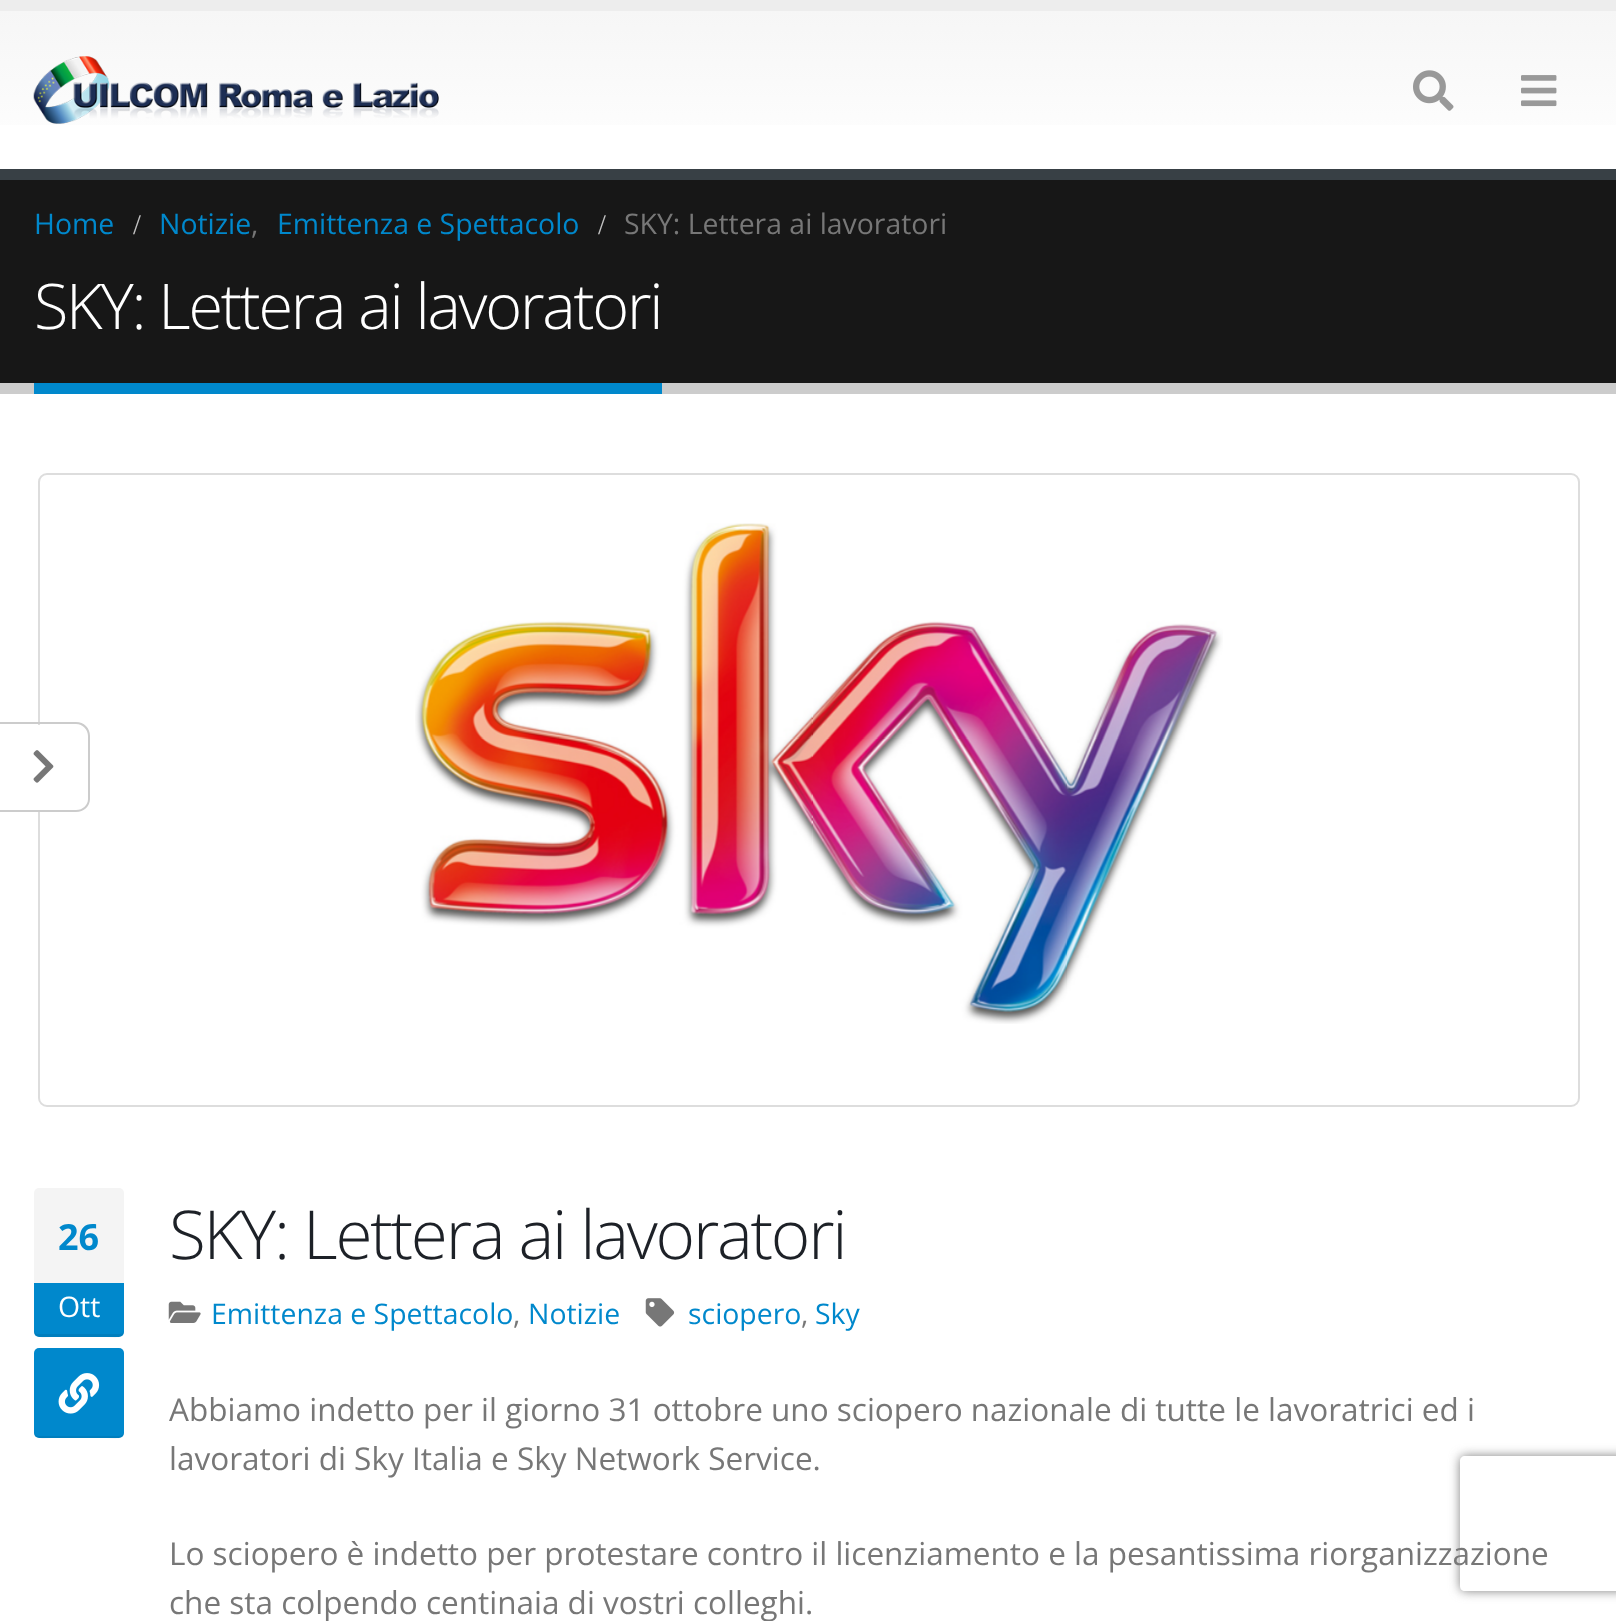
<!DOCTYPE html>
<meta charset="utf-8">
<style>body { margin: 0 } canvas { display: block }</style>
<canvas id="canvas" width="1616" height="1621"></canvas>
<script type="module">
  const canvas = document.getElementById("canvas");
  const ctx = canvas.getContext("2d");
  ctx.miterLimit = 4;
  ctx.fontKerning = "normal";
  async function loadImage(src) {
    const img = new Image();
    img.src = src;
    await img.decode();
    return img;
  }
  let gradient;

  ctx.fillStyle = "#ffffff";
  ctx.fillRect(0, 0, 1616, 1621);
  ctx.fillStyle = "#ededed";
  ctx.fillRect(0, 0, 1616, 11);
  gradient = ctx.createLinearGradient(809, 11, 809, 169);
  gradient.addColorStop(0, "#f6f6f6");
  gradient.addColorStop(1, "#ffffff");
  ctx.fillStyle = gradient;
  ctx.fillRect(0, 11, 1616, 114);
  ctx.drawImage(await loadImage("img1.png"), 33, 56, 406, 68);
  ctx.drawImage(await loadImage("img2.png"), 1413, 70, 41, 41);
  ctx.drawImage(await loadImage("img3.png"), 1521, 75, 36, 32);
  ctx.fillStyle = "#171717";
  ctx.fillRect(0, 180, 1616, 203);
  ctx.fillStyle = "#384045";
  ctx.fillRect(0, 169, 1616, 11);
  ctx.fillStyle = "#cccccc";
  ctx.fillRect(0, 383, 1616, 11);
  ctx.font = "28.4px Open Sans";
  ctx.fillStyle = "#0088cc";
  ctx.fillText("Home", 34, 234);
  ctx.font = "28.4px Liberation Serif";
  ctx.fillStyle = "#c3c3c3";
  ctx.fillText("/", 133, 234);
  ctx.font = "28.4px Open Sans";
  ctx.fillStyle = "#0088cc";
  ctx.fillText("Notizie", 159, 234);
  ctx.fillStyle = "#777777";
  ctx.fillText(",", 251, 234);
  ctx.fillStyle = "#0088cc";
  ctx.fillText("Emittenza e Spettacolo", 277, 234);
  ctx.font = "28.4px Liberation Serif";
  ctx.fillStyle = "#c3c3c3";
  ctx.fillText("/", 598, 234);
  ctx.font = "28.4px Open Sans";
  ctx.fillStyle = "#777777";
  ctx.fillText("SKY: Lettera ai lavoratori", 624, 234);
  ctx.fillStyle = "#0088cc";
  ctx.fillRect(34, 383, 628, 11);
  ctx.letterSpacing = "-2.25px";
  ctx.font = "300 63px Open Sans";
  ctx.fillStyle = "#ffffff";
  ctx.fillText("SKY: Lettera ai lavoratori", 34, 329);
  ctx.beginPath();
  ctx.roundRect(39, 474, 1540, 632, 8);
  ctx.strokeStyle = "#dddddd";
  ctx.lineWidth = 2;
  ctx.stroke();
  ctx.drawImage(await loadImage("img4.png"), 415, 523, 808, 501);
  ctx.fillStyle = "#f4f4f4";
  ctx.beginPath();
  ctx.roundRect(34, 1188, 90, 95, [5, 5, 0, 0]);
  ctx.fill();
  ctx.letterSpacing = "0px";
  ctx.font = "bold 36px Open Sans";
  ctx.fillStyle = "#0088cc";
  ctx.fillText("26", 58, 1250);
  ctx.beginPath();
  ctx.roundRect(34, 1283, 90, 54, [0, 0, 5, 5]);
  ctx.fill();
  ctx.fillStyle = "rgba(0, 0, 0, 0.07)";
  ctx.beginPath();
  ctx.moveTo(34, 1330);
  ctx.bezierCurveTo(34, 1340, 44, 1337, 52, 1337);
  ctx.lineTo(106, 1337);
  ctx.bezierCurveTo(114, 1337, 124, 1340, 124, 1330);
  ctx.bezierCurveTo(124, 1332, 122, 1334, 119, 1334);
  ctx.lineTo(38, 1334);
  ctx.bezierCurveTo(36, 1334, 34, 1332, 34, 1330);
  ctx.closePath();
  ctx.fill();
  ctx.font = "28.4px Open Sans";
  ctx.fillStyle = "#ffffff";
  ctx.fillText("Ott", 58, 1317);
  ctx.fillStyle = "#0088cc";
  ctx.beginPath();
  ctx.roundRect(34, 1348, 90, 90, 5);
  ctx.fill();
  ctx.fillStyle = "rgba(0, 0, 0, 0.07)";
  ctx.beginPath();
  ctx.moveTo(34, 1431);
  ctx.bezierCurveTo(34, 1441, 44, 1438, 52, 1438);
  ctx.lineTo(106, 1438);
  ctx.bezierCurveTo(114, 1438, 124, 1441, 124, 1431);
  ctx.bezierCurveTo(124, 1433, 122, 1436, 119, 1436);
  ctx.lineTo(38, 1436);
  ctx.bezierCurveTo(36, 1436, 34, 1433, 34, 1431);
  ctx.closePath();
  ctx.fill();
  ctx.drawImage(await loadImage("img5.png"), 58, 1373, 42, 41);
  ctx.letterSpacing = "-2.25px";
  ctx.font = "300 67.5px Open Sans";
  ctx.fillStyle = "#1d2127";
  ctx.fillText("SKY: Lettera ai lavoratori", 169, 1259);
  ctx.drawImage(await loadImage("img6.png"), 168, 1301, 33, 22);
  ctx.letterSpacing = "0px";
  ctx.font = "28.4px Open Sans";
  ctx.fillStyle = "#0088cc";
  ctx.fillText("Emittenza e Spettacolo", 211, 1324);
  ctx.fillStyle = "#777777";
  ctx.fillText(",", 513, 1324);
  ctx.fillStyle = "#0088cc";
  ctx.fillText("Notizie", 528, 1324);
  ctx.drawImage(await loadImage("img7.png"), 645, 1298, 30, 29);
  ctx.fillText("sciopero", 688, 1324);
  ctx.fillStyle = "#777777";
  ctx.fillText(",", 801, 1324);
  ctx.fillStyle = "#0088cc";
  ctx.fillText("Sky", 815, 1324);
  ctx.font = "31.5px Open Sans";
  ctx.fillStyle = "#777777";
  ctx.fillText("Abbiamo indetto per il giorno 31 ottobre uno sciopero nazionale di tutte le lavoratrici ed i", 169, 1421);
  ctx.fillText("lavoratori di Sky Italia e Sky Network Service.", 169, 1470);
  ctx.fillText("Lo sciopero è indetto per protestare contro il licenziamento e la pesantissima riorganizzazione", 169, 1565);
  ctx.fillText("che sta colpendo centinaia di vostri colleghi.", 169, 1614);
  ctx.fillStyle = "#ffffff";
  ctx.beginPath();
  ctx.roundRect(0, 725, 88, 85, [0, 11, 11, 0]);
  ctx.fill();
  ctx.fillStyle = "#cccccc";
  ctx.beginPath();
  ctx.moveTo(0, 722);
  ctx.lineTo(76, 722);
  ctx.bezierCurveTo(84, 722, 90, 728, 90, 736);
  ctx.lineTo(90, 799);
  ctx.bezierCurveTo(90, 806, 84, 812, 76, 812);
  ctx.lineTo(0, 812);
  ctx.closePath();
  ctx.moveTo(0, 724);
  ctx.lineTo(76, 724);
  ctx.bezierCurveTo(83, 724, 88, 730, 88, 736);
  ctx.lineTo(88, 799);
  ctx.bezierCurveTo(88, 805, 83, 810, 76, 810);
  ctx.lineTo(0, 810);
  ctx.closePath();
  ctx.fill("evenodd");
  ctx.drawImage(await loadImage("img8.png"), 33, 750, 21, 33);
  ctx.save();
  ctx.beginPath();
  ctx.moveTo(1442, 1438);
  ctx.lineTo(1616, 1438);
  ctx.lineTo(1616, 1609);
  ctx.lineTo(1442, 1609);
  ctx.closePath();
  ctx.moveTo(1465, 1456);
  ctx.lineTo(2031, 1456);
  ctx.bezierCurveTo(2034, 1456, 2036, 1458, 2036, 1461);
  ctx.lineTo(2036, 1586);
  ctx.bezierCurveTo(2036, 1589, 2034, 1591, 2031, 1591);
  ctx.lineTo(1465, 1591);
  ctx.bezierCurveTo(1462, 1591, 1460, 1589, 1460, 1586);
  ctx.lineTo(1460, 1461);
  ctx.bezierCurveTo(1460, 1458, 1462, 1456, 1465, 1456);
  ctx.closePath();
  ctx.clip("evenodd");
  ctx.fillStyle = "#808080";
  ctx.filter = "blur(5.5px)";
  ctx.beginPath();
  ctx.roundRect(1460, 1456, 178, 135, 5);
  ctx.fill();
  ctx.filter = "none";
  ctx.restore();
</script>
